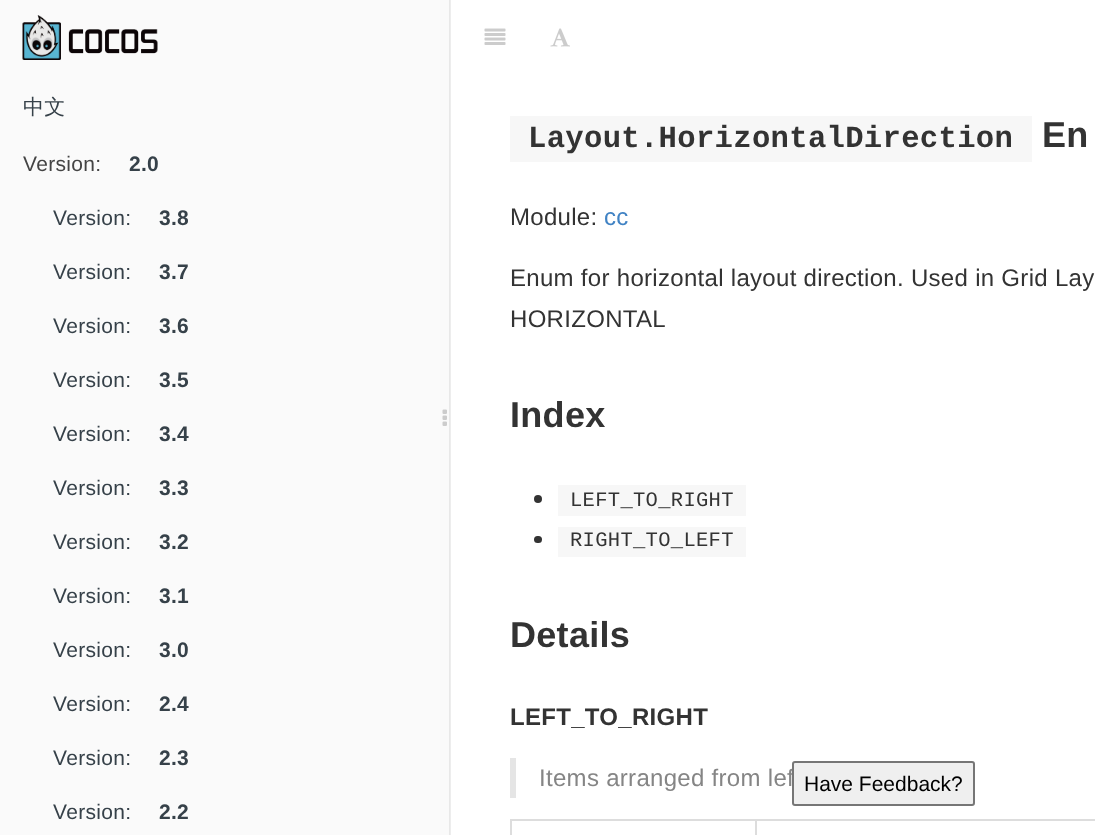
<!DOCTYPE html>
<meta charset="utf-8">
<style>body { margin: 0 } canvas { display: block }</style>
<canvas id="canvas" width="1095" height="835"></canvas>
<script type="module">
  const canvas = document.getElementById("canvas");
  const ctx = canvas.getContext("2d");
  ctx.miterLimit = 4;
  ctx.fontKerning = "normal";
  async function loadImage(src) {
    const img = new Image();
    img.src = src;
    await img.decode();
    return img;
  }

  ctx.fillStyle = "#ffffff";
  ctx.fillRect(0, 0, 1095, 835);
  ctx.fillStyle = "#ededed";
  ctx.fillRect(450, 0, 1, 835);
  ctx.fillStyle = "#fafafa";
  ctx.fillRect(0, 0, 449, 835);
  ctx.fillStyle = "#e8e8e8";
  ctx.fillRect(449, 0, 1, 835);
  ctx.drawImage(await loadImage("img1.png"), 22, 15, 136, 45);
  ctx.letterSpacing = "0.3px";
  ctx.font = "500 21px WenQuanYi Zen Hei";
  ctx.fillStyle = "#364149";
  ctx.fillText("中文", 23, 114);
  ctx.font = "21px Liberation Sans";
  ctx.fillStyle = "#444444";
  ctx.fillText("Version:", 23, 171);
  ctx.font = "bold 21px Liberation Sans";
  ctx.fillStyle = "#364149";
  ctx.fillText("2.0", 129, 171);
  ctx.font = "21px Liberation Sans";
  ctx.fillText("Version:", 53, 225);
  ctx.font = "bold 21px Liberation Sans";
  ctx.fillText("3.8", 159, 225);
  ctx.font = "21px Liberation Sans";
  ctx.fillText("Version:", 53, 279);
  ctx.font = "bold 21px Liberation Sans";
  ctx.fillText("3.7", 159, 279);
  ctx.font = "21px Liberation Sans";
  ctx.fillText("Version:", 53, 333);
  ctx.font = "bold 21px Liberation Sans";
  ctx.fillText("3.6", 159, 333);
  ctx.font = "21px Liberation Sans";
  ctx.fillText("Version:", 53, 387);
  ctx.font = "bold 21px Liberation Sans";
  ctx.fillText("3.5", 159, 387);
  ctx.font = "21px Liberation Sans";
  ctx.fillText("Version:", 53, 441);
  ctx.font = "bold 21px Liberation Sans";
  ctx.fillText("3.4", 159, 441);
  ctx.font = "21px Liberation Sans";
  ctx.fillText("Version:", 53, 495);
  ctx.font = "bold 21px Liberation Sans";
  ctx.fillText("3.3", 159, 495);
  ctx.font = "21px Liberation Sans";
  ctx.fillText("Version:", 53, 549);
  ctx.font = "bold 21px Liberation Sans";
  ctx.fillText("3.2", 159, 549);
  ctx.font = "21px Liberation Sans";
  ctx.fillText("Version:", 53, 603);
  ctx.font = "bold 21px Liberation Sans";
  ctx.fillText("3.1", 159, 603);
  ctx.font = "21px Liberation Sans";
  ctx.fillText("Version:", 53, 657);
  ctx.font = "bold 21px Liberation Sans";
  ctx.fillText("3.0", 159, 657);
  ctx.font = "21px Liberation Sans";
  ctx.fillText("Version:", 53, 711);
  ctx.font = "bold 21px Liberation Sans";
  ctx.fillText("2.4", 159, 711);
  ctx.font = "21px Liberation Sans";
  ctx.fillText("Version:", 53, 765);
  ctx.font = "bold 21px Liberation Sans";
  ctx.fillText("2.3", 159, 765);
  ctx.font = "21px Liberation Sans";
  ctx.fillText("Version:", 53, 819);
  ctx.font = "bold 21px Liberation Sans";
  ctx.fillText("2.2", 159, 819);
  ctx.drawImage(await loadImage("img2.png"), 442, 409, 5, 17);
  ctx.drawImage(await loadImage("img3.png"), 484, 28, 22, 17);
  ctx.drawImage(await loadImage("img4.png"), 550, 28, 20, 19);
  ctx.fillStyle = "#f7f7f7";
  ctx.fillRect(510, 116, 522, 46);
  ctx.font = "bold 30.6px Liberation Mono";
  ctx.fillStyle = "#333333";
  ctx.fillText("Layout.HorizontalDirection", 528, 147);
  ctx.font = "bold 36px Liberation Sans";
  ctx.fillText("En", 1042, 147);
  ctx.font = "24px Liberation Sans";
  ctx.fillText("Module:", 510, 225);
  ctx.fillStyle = "#4183c4";
  ctx.fillText("cc", 604, 225);
  ctx.fillStyle = "#333333";
  ctx.fillText("Enum for horizontal layout direction. Used in Grid Lay", 510, 286);
  ctx.fillText("HORIZONTAL", 510, 327);
  ctx.font = "bold 36px Liberation Sans";
  ctx.fillText("Index", 510, 427);
  ctx.beginPath();
  ctx.arc(538, 499, 4, 0, Math.PI * 2);
  ctx.fill();
  ctx.fillStyle = "#f7f7f7";
  ctx.fillRect(558, 485, 188, 31);
  ctx.font = "20.5px Liberation Mono";
  ctx.fillStyle = "#333333";
  ctx.fillText("LEFT_TO_RIGHT", 570, 506);
  ctx.beginPath();
  ctx.roundRect(534, 536, 8, 7, 3.5);
  ctx.fill();
  ctx.fillStyle = "#f7f7f7";
  ctx.fillRect(558, 527, 188, 30);
  ctx.fillStyle = "#333333";
  ctx.fillText("RIGHT_TO_LEFT", 570, 546);
  ctx.font = "bold 36px Liberation Sans";
  ctx.fillText("Details", 510, 647);
  ctx.font = "bold 24px Liberation Sans";
  ctx.fillText("LEFT_TO_RIGHT", 510, 725);
  ctx.fillStyle = "#e5e5e5";
  ctx.fillRect(510, 758, 6, 40);
  ctx.font = "24px Liberation Sans";
  ctx.fillStyle = "#858585";
  ctx.fillText("Items arranged from lef", 539, 786);
  ctx.fillStyle = "#dddddd";
  ctx.fillRect(755, 819, 340, 2);
  ctx.fillRect(755, 819, 2, 16);
  ctx.fillRect(510, 819, 246, 2);
  ctx.fillRect(510, 819, 2, 16);
  ctx.fillStyle = "#efefef";
  ctx.beginPath();
  ctx.roundRect(793, 762, 181, 43, 2);
  ctx.fill();
  ctx.strokeStyle = "#767676";
  ctx.lineWidth = 2;
  ctx.stroke();
  ctx.letterSpacing = "0px";
  ctx.font = "21px Liberation Sans";
  ctx.fillStyle = "#000000";
  ctx.fillText("Have Feedback?", 804, 791);
</script>
